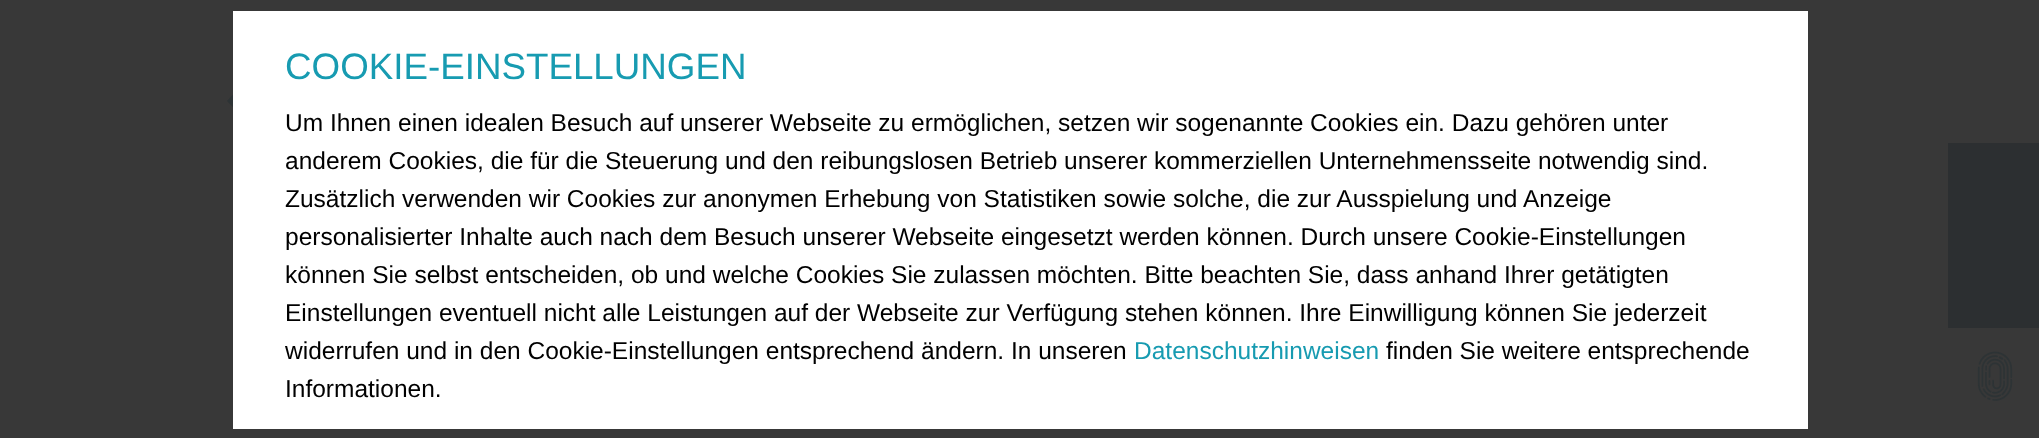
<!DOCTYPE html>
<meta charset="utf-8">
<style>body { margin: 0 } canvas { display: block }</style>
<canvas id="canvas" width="2039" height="438"></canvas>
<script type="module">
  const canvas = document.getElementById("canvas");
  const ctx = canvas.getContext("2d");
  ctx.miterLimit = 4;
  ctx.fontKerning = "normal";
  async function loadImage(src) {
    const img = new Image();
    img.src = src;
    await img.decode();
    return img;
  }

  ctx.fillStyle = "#383838";
  ctx.fillRect(0, 0, 2039, 438);
  ctx.fillStyle = "#2d3335";
  ctx.beginPath();
  ctx.moveTo(242, 93.5);
  ctx.lineTo(235, 101);
  ctx.lineTo(242, 108);
  ctx.lineTo(238, 112);
  ctx.lineTo(227, 101);
  ctx.lineTo(238, 89.5);
  ctx.closePath();
  ctx.fill();
  ctx.fillStyle = "#ffffff";
  ctx.fillRect(233, 11, 1575, 418);
  ctx.font = "36.75px Liberation Sans";
  ctx.fillStyle = "#179bb1";
  ctx.fillText("COOKIE-EINSTELLUNGEN", 285, 79);
  ctx.font = "24.5px Liberation Sans";
  ctx.fillStyle = "#000000";
  ctx.fillText("Um Ihnen einen idealen Besuch auf unserer Webseite zu ermöglichen, setzen wir sogenannte Cookies ein. Dazu gehören unter", 285, 131);
  ctx.fillText("anderem Cookies, die für die Steuerung und den reibungslosen Betrieb unserer kommerziellen Unternehmensseite notwendig sind.", 285, 169);
  ctx.fillText("Zusätzlich verwenden wir Cookies zur anonymen Erhebung von Statistiken sowie solche, die zur Ausspielung und Anzeige", 285, 207);
  ctx.fillText("personalisierter Inhalte auch nach dem Besuch unserer Webseite eingesetzt werden können. Durch unsere Cookie-Einstellungen", 285, 245);
  ctx.fillText("können Sie selbst entscheiden, ob und welche Cookies Sie zulassen möchten. Bitte beachten Sie, dass anhand Ihrer getätigten", 285, 283);
  ctx.fillText("Einstellungen eventuell nicht alle Leistungen auf der Webseite zur Verfügung stehen können. Ihre Einwilligung können Sie jederzeit", 285, 321);
  ctx.fillText("widerrufen und in den Cookie-Einstellungen entsprechend ändern. In unseren", 285, 359);
  ctx.fillStyle = "#179bb1";
  ctx.fillText("Datenschutzhinweisen", 1134, 359);
  ctx.fillStyle = "#000000";
  ctx.fillText("finden Sie weitere entsprechende", 1386, 359);
  ctx.fillText("Informationen.", 285, 397);
  ctx.fillStyle = "#2c2f31";
  ctx.fillRect(1948, 143, 91, 185);
  ctx.drawImage(await loadImage("img1.png"), 1977, 351, 36, 50);
</script>
